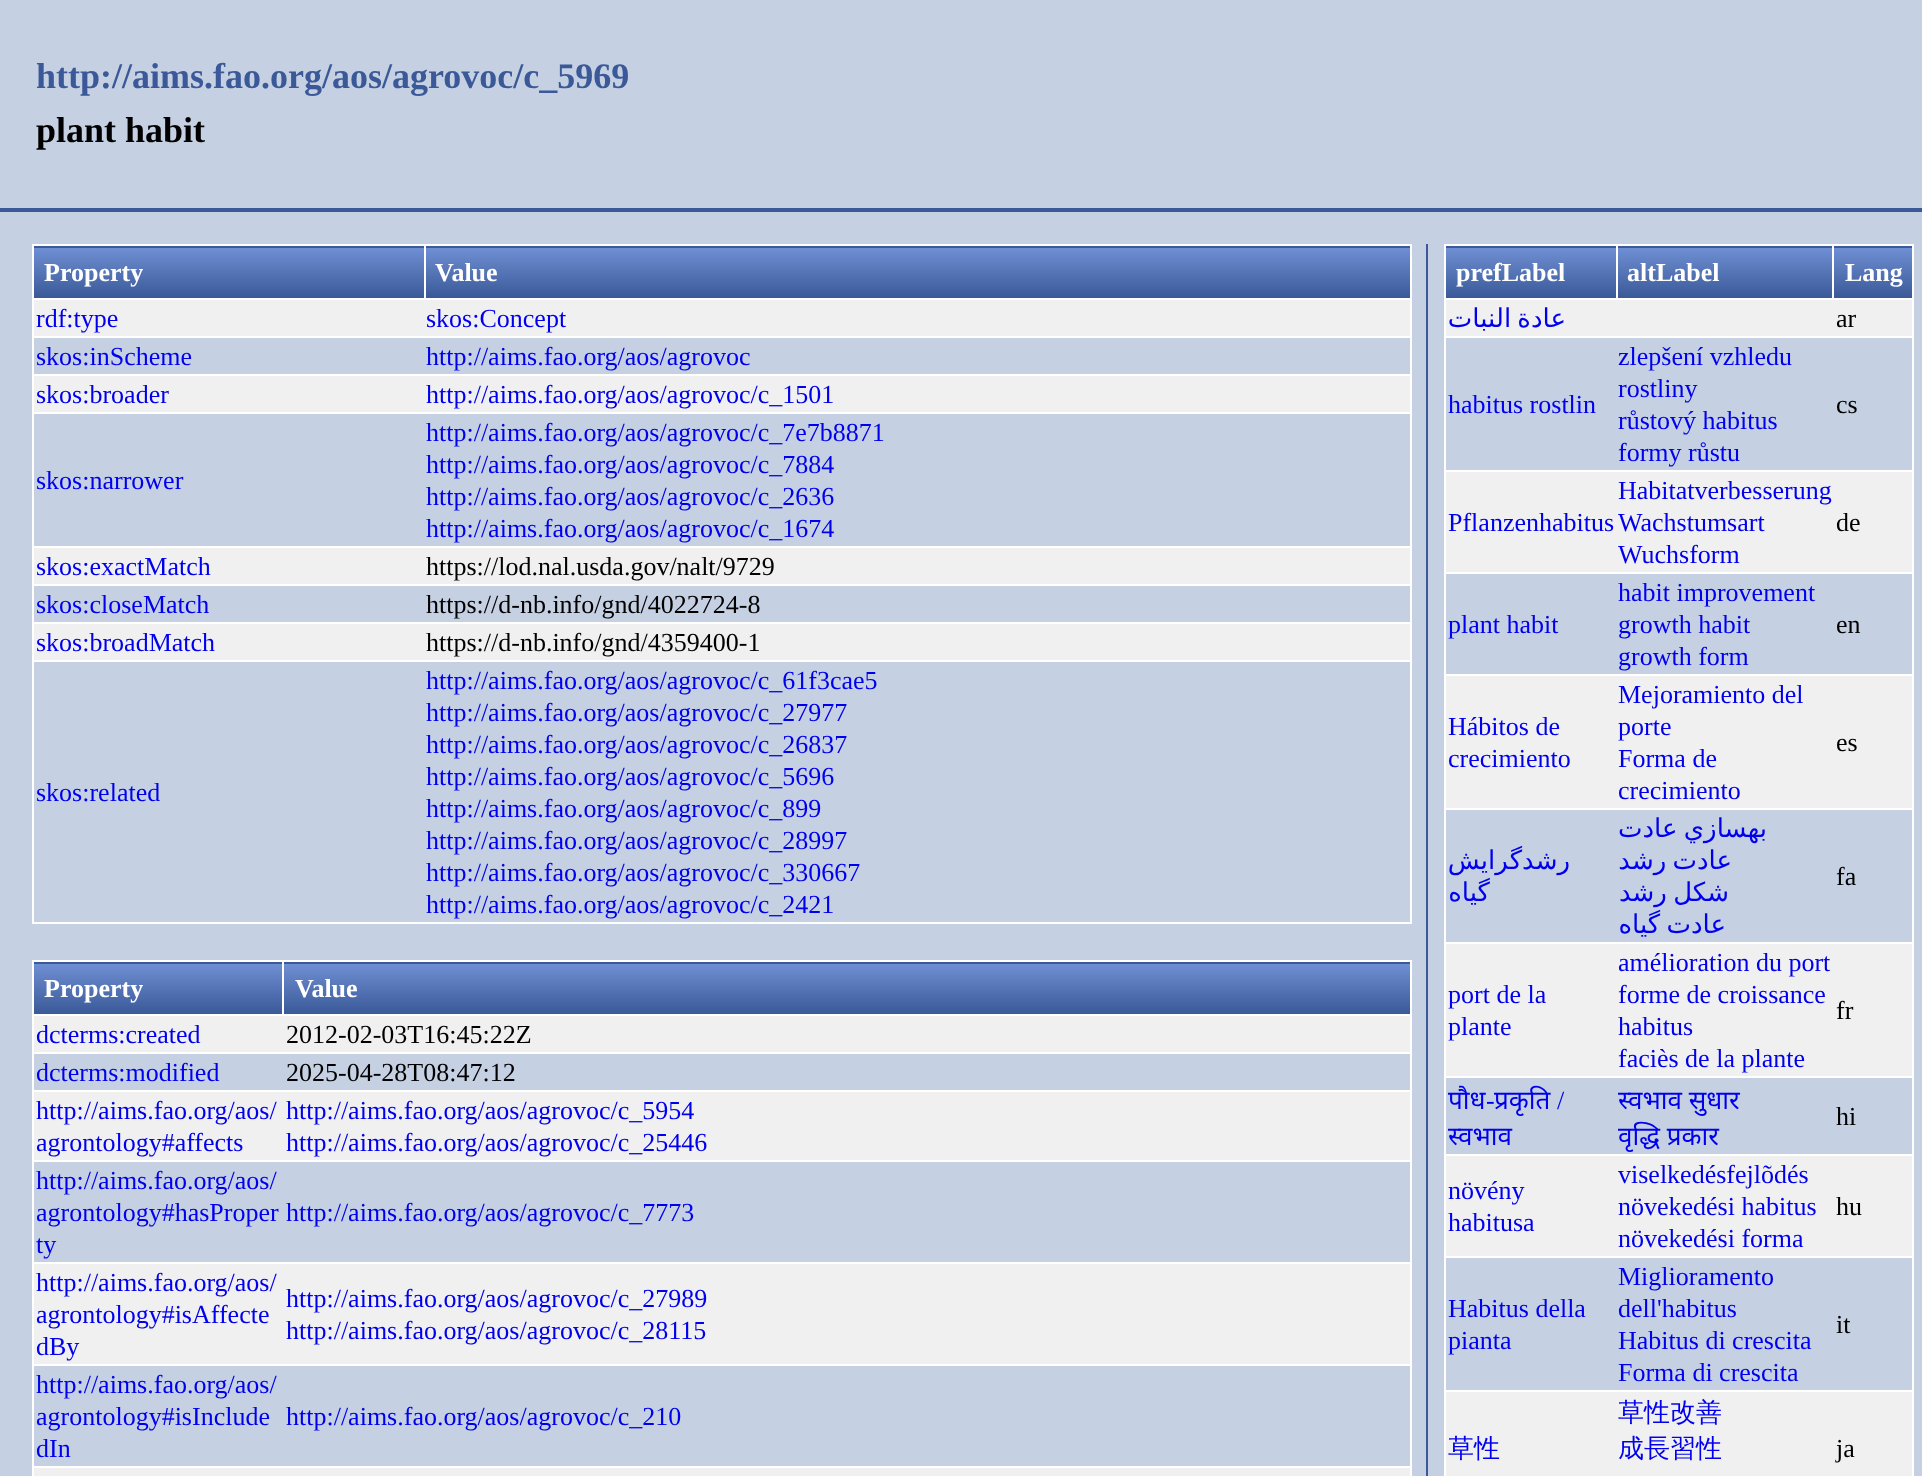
<!DOCTYPE html>
<meta charset="utf-8">
<style>body { margin: 0 } canvas { display: block }</style>
<canvas id="canvas" width="1922" height="1476"></canvas>
<script type="module">
  const canvas = document.getElementById("canvas");
  const ctx = canvas.getContext("2d");
  ctx.miterLimit = 4;
  ctx.fontKerning = "normal";
  let gradient;

  ctx.fillStyle = "#c5d1e2";
  ctx.fillRect(0, 0, 1922, 1476);
  ctx.fillStyle = "#3b5998";
  ctx.fillRect(0, 208, 1922, 4);
  ctx.font = "bold 36px Liberation Serif";
  ctx.fillText("http://aims.fao.org/aos/agrovoc/c_5969", 36, 88);
  ctx.fillStyle = "#000000";
  ctx.fillText("plant habit", 36, 142);
  ctx.fillStyle = "#3b5998";
  ctx.fillRect(1426, 244, 2, 1232);
  ctx.fillStyle = "#ffffff";
  ctx.fillRect(32, 244, 1380, 2);
  ctx.fillRect(1410, 244, 2, 680);
  ctx.fillRect(32, 922, 1380, 2);
  ctx.fillRect(32, 244, 2, 680);
  gradient = ctx.createLinearGradient(229, 198, 229, 248);
  gradient.addColorStop(0, "#6e8fd3");
  gradient.addColorStop(1, "#3b5998");
  ctx.fillStyle = gradient;
  ctx.fillRect(34, 246, 390, 2);
  gradient = ctx.createLinearGradient(229, 248, 229, 298);
  gradient.addColorStop(0, "#6e8fd3");
  gradient.addColorStop(1, "#3b5998");
  ctx.fillStyle = gradient;
  ctx.fillRect(34, 248, 390, 50);
  ctx.font = "bold 26px Liberation Serif";
  ctx.fillStyle = "#ffffff";
  ctx.fillText("Property", 44, 281);
  gradient = ctx.createLinearGradient(917, 198, 917, 248);
  gradient.addColorStop(0, "#6e8fd3");
  gradient.addColorStop(1, "#3b5998");
  ctx.fillStyle = gradient;
  ctx.fillRect(424, 246, 986, 2);
  gradient = ctx.createLinearGradient(917, 248, 917, 298);
  gradient.addColorStop(0, "#6e8fd3");
  gradient.addColorStop(1, "#3b5998");
  ctx.fillStyle = gradient;
  ctx.fillRect(426, 248, 984, 50);
  ctx.fillStyle = "#ffffff";
  ctx.fillRect(32, 298, 1380, 2);
  ctx.fillRect(424, 244, 2, 56);
  ctx.fillText("Value", 435, 281);
  ctx.fillStyle = "#f0f0f0";
  ctx.fillRect(34, 300, 1376, 36);
  ctx.font = "26px Liberation Serif";
  ctx.fillStyle = "#0000ee";
  ctx.fillText("rdf:type", 36, 327);
  ctx.fillText("skos:Concept", 426, 327);
  ctx.fillStyle = "#ffffff";
  ctx.fillRect(32, 336, 1380, 2);
  ctx.fillStyle = "#0000ee";
  ctx.fillText("skos:inScheme", 36, 365);
  ctx.fillText("http://aims.fao.org/aos/agrovoc", 426, 365);
  ctx.fillStyle = "#f0f0f0";
  ctx.fillRect(34, 376, 1376, 36);
  ctx.fillStyle = "#ffffff";
  ctx.fillRect(32, 374, 1380, 2);
  ctx.fillStyle = "#0000ee";
  ctx.fillText("skos:broader", 36, 403);
  ctx.fillText("http://aims.fao.org/aos/agrovoc/c_1501", 426, 403);
  ctx.fillStyle = "#ffffff";
  ctx.fillRect(32, 412, 1380, 2);
  ctx.fillStyle = "#0000ee";
  ctx.fillText("skos:narrower", 36, 489);
  ctx.fillText("http://aims.fao.org/aos/agrovoc/c_7e7b8871", 426, 441);
  ctx.fillText("http://aims.fao.org/aos/agrovoc/c_7884", 426, 473);
  ctx.fillText("http://aims.fao.org/aos/agrovoc/c_2636", 426, 505);
  ctx.fillText("http://aims.fao.org/aos/agrovoc/c_1674", 426, 537);
  ctx.fillStyle = "#f0f0f0";
  ctx.fillRect(34, 548, 1376, 36);
  ctx.fillStyle = "#ffffff";
  ctx.fillRect(32, 546, 1380, 2);
  ctx.fillStyle = "#0000ee";
  ctx.fillText("skos:exactMatch", 36, 575);
  ctx.fillStyle = "#000000";
  ctx.fillText("https://lod.nal.usda.gov/nalt/9729", 426, 575);
  ctx.fillStyle = "#ffffff";
  ctx.fillRect(32, 584, 1380, 2);
  ctx.fillStyle = "#0000ee";
  ctx.fillText("skos:closeMatch", 36, 613);
  ctx.fillStyle = "#000000";
  ctx.fillText("https://d-nb.info/gnd/4022724-8", 426, 613);
  ctx.fillStyle = "#f0f0f0";
  ctx.fillRect(34, 624, 1376, 36);
  ctx.fillStyle = "#ffffff";
  ctx.fillRect(32, 622, 1380, 2);
  ctx.fillStyle = "#0000ee";
  ctx.fillText("skos:broadMatch", 36, 651);
  ctx.fillStyle = "#000000";
  ctx.fillText("https://d-nb.info/gnd/4359400-1", 426, 651);
  ctx.fillStyle = "#ffffff";
  ctx.fillRect(32, 660, 1380, 2);
  ctx.fillStyle = "#0000ee";
  ctx.fillText("skos:related", 36, 801);
  ctx.fillText("http://aims.fao.org/aos/agrovoc/c_61f3cae5", 426, 689);
  ctx.fillText("http://aims.fao.org/aos/agrovoc/c_27977", 426, 721);
  ctx.fillText("http://aims.fao.org/aos/agrovoc/c_26837", 426, 753);
  ctx.fillText("http://aims.fao.org/aos/agrovoc/c_5696", 426, 785);
  ctx.fillText("http://aims.fao.org/aos/agrovoc/c_899", 426, 817);
  ctx.fillText("http://aims.fao.org/aos/agrovoc/c_28997", 426, 849);
  ctx.fillText("http://aims.fao.org/aos/agrovoc/c_330667", 426, 881);
  ctx.fillText("http://aims.fao.org/aos/agrovoc/c_2421", 426, 913);
  ctx.fillStyle = "#ffffff";
  ctx.fillRect(32, 960, 1380, 2);
  ctx.fillRect(1410, 960, 2, 516);
  ctx.fillRect(32, 960, 2, 516);
  gradient = ctx.createLinearGradient(159, 914, 159, 964);
  gradient.addColorStop(0, "#6e8fd3");
  gradient.addColorStop(1, "#3b5998");
  ctx.fillStyle = gradient;
  ctx.fillRect(34, 962, 250, 2);
  gradient = ctx.createLinearGradient(159, 964, 159, 1014);
  gradient.addColorStop(0, "#6e8fd3");
  gradient.addColorStop(1, "#3b5998");
  ctx.fillStyle = gradient;
  ctx.fillRect(34, 964, 248, 50);
  ctx.font = "bold 26px Liberation Serif";
  ctx.fillStyle = "#ffffff";
  ctx.fillText("Property", 44, 997);
  gradient = ctx.createLinearGradient(847, 914, 847, 964);
  gradient.addColorStop(0, "#6e8fd3");
  gradient.addColorStop(1, "#3b5998");
  ctx.fillStyle = gradient;
  ctx.fillRect(284, 962, 1126, 2);
  gradient = ctx.createLinearGradient(847, 964, 847, 1014);
  gradient.addColorStop(0, "#6e8fd3");
  gradient.addColorStop(1, "#3b5998");
  ctx.fillStyle = gradient;
  ctx.fillRect(284, 964, 1126, 50);
  ctx.fillStyle = "#ffffff";
  ctx.fillRect(32, 1014, 1380, 2);
  ctx.fillRect(282, 960, 2, 56);
  ctx.fillText("Value", 295, 997);
  ctx.fillStyle = "#f0f0f0";
  ctx.fillRect(34, 1016, 1376, 36);
  ctx.font = "26px Liberation Serif";
  ctx.fillStyle = "#0000ee";
  ctx.fillText("dcterms:created", 36, 1043);
  ctx.fillStyle = "#000000";
  ctx.fillText("2012-02-03T16:45:22Z", 286, 1043);
  ctx.fillStyle = "#ffffff";
  ctx.fillRect(32, 1052, 1380, 2);
  ctx.fillStyle = "#0000ee";
  ctx.fillText("dcterms:modified", 36, 1081);
  ctx.fillStyle = "#000000";
  ctx.fillText("2025-04-28T08:47:12", 286, 1081);
  ctx.fillStyle = "#f0f0f0";
  ctx.fillRect(34, 1092, 1376, 68);
  ctx.fillStyle = "#ffffff";
  ctx.fillRect(32, 1090, 1380, 2);
  ctx.fillStyle = "#0000ee";
  ctx.fillText("http://aims.fao.org/aos/", 36, 1119);
  ctx.fillText("agrontology#affects", 36, 1151);
  ctx.fillText("http://aims.fao.org/aos/agrovoc/c_5954", 286, 1119);
  ctx.fillText("http://aims.fao.org/aos/agrovoc/c_25446", 286, 1151);
  ctx.fillStyle = "#ffffff";
  ctx.fillRect(32, 1160, 1380, 2);
  ctx.fillStyle = "#0000ee";
  ctx.fillText("http://aims.fao.org/aos/", 36, 1189);
  ctx.fillText("agrontology#hasProper", 36, 1221);
  ctx.fillText("ty", 36, 1253);
  ctx.fillText("http://aims.fao.org/aos/agrovoc/c_7773", 286, 1221);
  ctx.fillStyle = "#f0f0f0";
  ctx.fillRect(34, 1264, 1376, 100);
  ctx.fillStyle = "#ffffff";
  ctx.fillRect(32, 1262, 1380, 2);
  ctx.fillStyle = "#0000ee";
  ctx.fillText("http://aims.fao.org/aos/", 36, 1291);
  ctx.fillText("agrontology#isAffecte", 36, 1323);
  ctx.fillText("dBy", 36, 1355);
  ctx.fillText("http://aims.fao.org/aos/agrovoc/c_27989", 286, 1307);
  ctx.fillText("http://aims.fao.org/aos/agrovoc/c_28115", 286, 1339);
  ctx.fillStyle = "#ffffff";
  ctx.fillRect(32, 1364, 1380, 2);
  ctx.fillStyle = "#0000ee";
  ctx.fillText("http://aims.fao.org/aos/", 36, 1393);
  ctx.fillText("agrontology#isInclude", 36, 1425);
  ctx.fillText("dIn", 36, 1457);
  ctx.fillText("http://aims.fao.org/aos/agrovoc/c_210", 286, 1425);
  ctx.fillStyle = "#f0f0f0";
  ctx.fillRect(34, 1468, 1376, 8);
  ctx.fillStyle = "#ffffff";
  ctx.fillRect(32, 1466, 1380, 2);
  ctx.fillRect(1444, 244, 470, 2);
  gradient = ctx.createLinearGradient(1874, 198, 1874, 248);
  gradient.addColorStop(0, "#6e8fd3");
  gradient.addColorStop(1, "#3b5998");
  ctx.fillStyle = gradient;
  ctx.fillRect(1834, 246, 80, 2);
  ctx.fillStyle = "#ffffff";
  ctx.fillRect(1912, 244, 2, 1232);
  ctx.fillRect(1444, 244, 2, 1232);
  gradient = ctx.createLinearGradient(1531, 198, 1531, 248);
  gradient.addColorStop(0, "#6e8fd3");
  gradient.addColorStop(1, "#3b5998");
  ctx.fillStyle = gradient;
  ctx.fillRect(1446, 246, 170, 2);
  gradient = ctx.createLinearGradient(1531, 248, 1531, 298);
  gradient.addColorStop(0, "#6e8fd3");
  gradient.addColorStop(1, "#3b5998");
  ctx.fillStyle = gradient;
  ctx.fillRect(1446, 248, 170, 50);
  ctx.font = "bold 26px Liberation Serif";
  ctx.fillStyle = "#ffffff";
  ctx.fillText("prefLabel", 1456, 281);
  gradient = ctx.createLinearGradient(1725, 198, 1725, 248);
  gradient.addColorStop(0, "#6e8fd3");
  gradient.addColorStop(1, "#3b5998");
  ctx.fillStyle = gradient;
  ctx.fillRect(1616, 246, 218, 2);
  gradient = ctx.createLinearGradient(1725, 248, 1725, 298);
  gradient.addColorStop(0, "#6e8fd3");
  gradient.addColorStop(1, "#3b5998");
  ctx.fillStyle = gradient;
  ctx.fillRect(1618, 248, 214, 50);
  ctx.fillStyle = "#ffffff";
  ctx.fillRect(1444, 298, 470, 2);
  ctx.fillRect(1616, 244, 2, 56);
  ctx.fillText("altLabel", 1627, 281);
  gradient = ctx.createLinearGradient(1874, 248, 1874, 298);
  gradient.addColorStop(0, "#6e8fd3");
  gradient.addColorStop(1, "#3b5998");
  ctx.fillStyle = gradient;
  ctx.fillRect(1834, 248, 78, 50);
  ctx.fillStyle = "#ffffff";
  ctx.fillRect(1832, 244, 2, 56);
  ctx.fillText("Lang", 1845, 281);
  ctx.fillStyle = "#f0f0f0";
  ctx.fillRect(1446, 300, 466, 36);
  ctx.wordSpacing = "-2px";
  ctx.direction = "rtl";
  ctx.font = "26px DejaVu Sans";
  ctx.fillStyle = "#0000ee";
  ctx.fillText("عادة النبات", 1566, 327);
  ctx.wordSpacing = "0px";
  ctx.direction = "ltr";
  ctx.font = "26px Liberation Serif";
  ctx.fillStyle = "#000000";
  ctx.fillText("ar", 1836, 327);
  ctx.fillStyle = "#ffffff";
  ctx.fillRect(1444, 336, 470, 2);
  ctx.fillStyle = "#0000ee";
  ctx.fillText("habitus rostlin", 1448, 413);
  ctx.fillText("zlepšení vzhledu", 1618, 365);
  ctx.fillText("rostliny", 1618, 397);
  ctx.fillText("růstový habitus", 1618, 429);
  ctx.fillText("formy růstu", 1618, 461);
  ctx.fillStyle = "#000000";
  ctx.fillText("cs", 1836, 413);
  ctx.fillStyle = "#f0f0f0";
  ctx.fillRect(1446, 472, 466, 100);
  ctx.fillStyle = "#ffffff";
  ctx.fillRect(1444, 470, 470, 2);
  ctx.fillStyle = "#0000ee";
  ctx.fillText("Pflanzenhabitus", 1448, 531);
  ctx.fillText("Habitatverbesserung", 1618, 499);
  ctx.fillText("Wachstumsart", 1618, 531);
  ctx.fillText("Wuchsform", 1618, 563);
  ctx.fillStyle = "#000000";
  ctx.fillText("de", 1836, 531);
  ctx.fillStyle = "#ffffff";
  ctx.fillRect(1444, 572, 470, 2);
  ctx.fillStyle = "#0000ee";
  ctx.fillText("plant habit", 1448, 633);
  ctx.fillText("habit improvement", 1618, 601);
  ctx.fillText("growth habit", 1618, 633);
  ctx.fillText("growth form", 1618, 665);
  ctx.fillStyle = "#000000";
  ctx.fillText("en", 1836, 633);
  ctx.fillStyle = "#f0f0f0";
  ctx.fillRect(1446, 676, 466, 132);
  ctx.fillStyle = "#ffffff";
  ctx.fillRect(1444, 674, 470, 2);
  ctx.fillStyle = "#0000ee";
  ctx.fillText("Hábitos de", 1448, 735);
  ctx.fillText("crecimiento", 1448, 767);
  ctx.fillText("Mejoramiento del", 1618, 703);
  ctx.fillText("porte", 1618, 735);
  ctx.fillText("Forma de", 1618, 767);
  ctx.fillText("crecimiento", 1618, 799);
  ctx.fillStyle = "#000000";
  ctx.fillText("es", 1836, 751);
  ctx.fillStyle = "#ffffff";
  ctx.fillRect(1444, 808, 470, 2);
  ctx.direction = "rtl";
  ctx.font = "26px DejaVu Sans";
  ctx.fillStyle = "#0000ee";
  ctx.fillText("رشدگرایش", 1570, 869);
  ctx.fillText("گیاه", 1490, 901);
  ctx.wordSpacing = "-2px";
  ctx.fillText("بهسازي عادت", 1767, 837);
  ctx.fillText("عادت رشد", 1732, 869);
  ctx.fillText("شكل رشد", 1729, 901);
  ctx.fillText("عادت گياه", 1726, 933);
  ctx.wordSpacing = "0px";
  ctx.direction = "ltr";
  ctx.font = "26px Liberation Serif";
  ctx.fillStyle = "#000000";
  ctx.fillText("fa", 1836, 885);
  ctx.fillStyle = "#f0f0f0";
  ctx.fillRect(1446, 944, 466, 132);
  ctx.fillStyle = "#ffffff";
  ctx.fillRect(1444, 942, 470, 2);
  ctx.fillStyle = "#0000ee";
  ctx.fillText("port de la", 1448, 1003);
  ctx.fillText("plante", 1448, 1035);
  ctx.fillText("amélioration du port", 1618, 971);
  ctx.fillText("forme de croissance", 1618, 1003);
  ctx.fillText("habitus", 1618, 1035);
  ctx.fillText("faciès de la plante", 1618, 1067);
  ctx.fillStyle = "#000000";
  ctx.fillText("fr", 1836, 1019);
  ctx.fillStyle = "#ffffff";
  ctx.fillRect(1444, 1076, 470, 2);
  ctx.font = "26px Noto Sans";
  ctx.fillStyle = "#0000ee";
  ctx.fillText("पौध", 1448, 1109);
  ctx.font = "26px Liberation Serif";
  ctx.fillText("-", 1486, 1109);
  ctx.font = "26px Noto Sans";
  ctx.fillText("प्रकृति", 1494, 1109);
  ctx.font = "26px Liberation Serif";
  ctx.fillText("/", 1557, 1109);
  ctx.font = "26px Noto Sans";
  ctx.fillText("स्वभाव", 1448, 1145);
  ctx.fillText("स्वभाव सुधार", 1618, 1109);
  ctx.fillText("वृद्धि प्रकार", 1618, 1145);
  ctx.font = "26px Liberation Serif";
  ctx.fillStyle = "#000000";
  ctx.fillText("hi", 1836, 1125);
  ctx.fillStyle = "#f0f0f0";
  ctx.fillRect(1446, 1156, 466, 100);
  ctx.fillStyle = "#ffffff";
  ctx.fillRect(1444, 1154, 470, 2);
  ctx.fillStyle = "#0000ee";
  ctx.fillText("növény", 1448, 1199);
  ctx.fillText("habitusa", 1448, 1231);
  ctx.fillText("viselkedésfejlõdés", 1618, 1183);
  ctx.fillText("növekedési habitus", 1618, 1215);
  ctx.fillText("növekedési forma", 1618, 1247);
  ctx.fillStyle = "#000000";
  ctx.fillText("hu", 1836, 1215);
  ctx.fillStyle = "#ffffff";
  ctx.fillRect(1444, 1256, 470, 2);
  ctx.fillStyle = "#0000ee";
  ctx.fillText("Habitus della", 1448, 1317);
  ctx.fillText("pianta", 1448, 1349);
  ctx.fillText("Miglioramento", 1618, 1285);
  ctx.fillText("dell'habitus", 1618, 1317);
  ctx.fillText("Habitus di crescita", 1618, 1349);
  ctx.fillText("Forma di crescita", 1618, 1381);
  ctx.fillStyle = "#000000";
  ctx.fillText("it", 1836, 1333);
  ctx.fillStyle = "#f0f0f0";
  ctx.fillRect(1446, 1392, 466, 84);
  ctx.fillStyle = "#ffffff";
  ctx.fillRect(1444, 1390, 470, 2);
  ctx.font = "500 26px WenQuanYi Zen Hei";
  ctx.fillStyle = "#0000ee";
  ctx.fillText("草性", 1448, 1457);
  ctx.fillText("草性改善", 1618, 1421);
  ctx.fillText("成長習性", 1618, 1457);
  ctx.font = "26px Liberation Serif";
  ctx.fillStyle = "#000000";
  ctx.fillText("ja", 1836, 1457);
</script>
